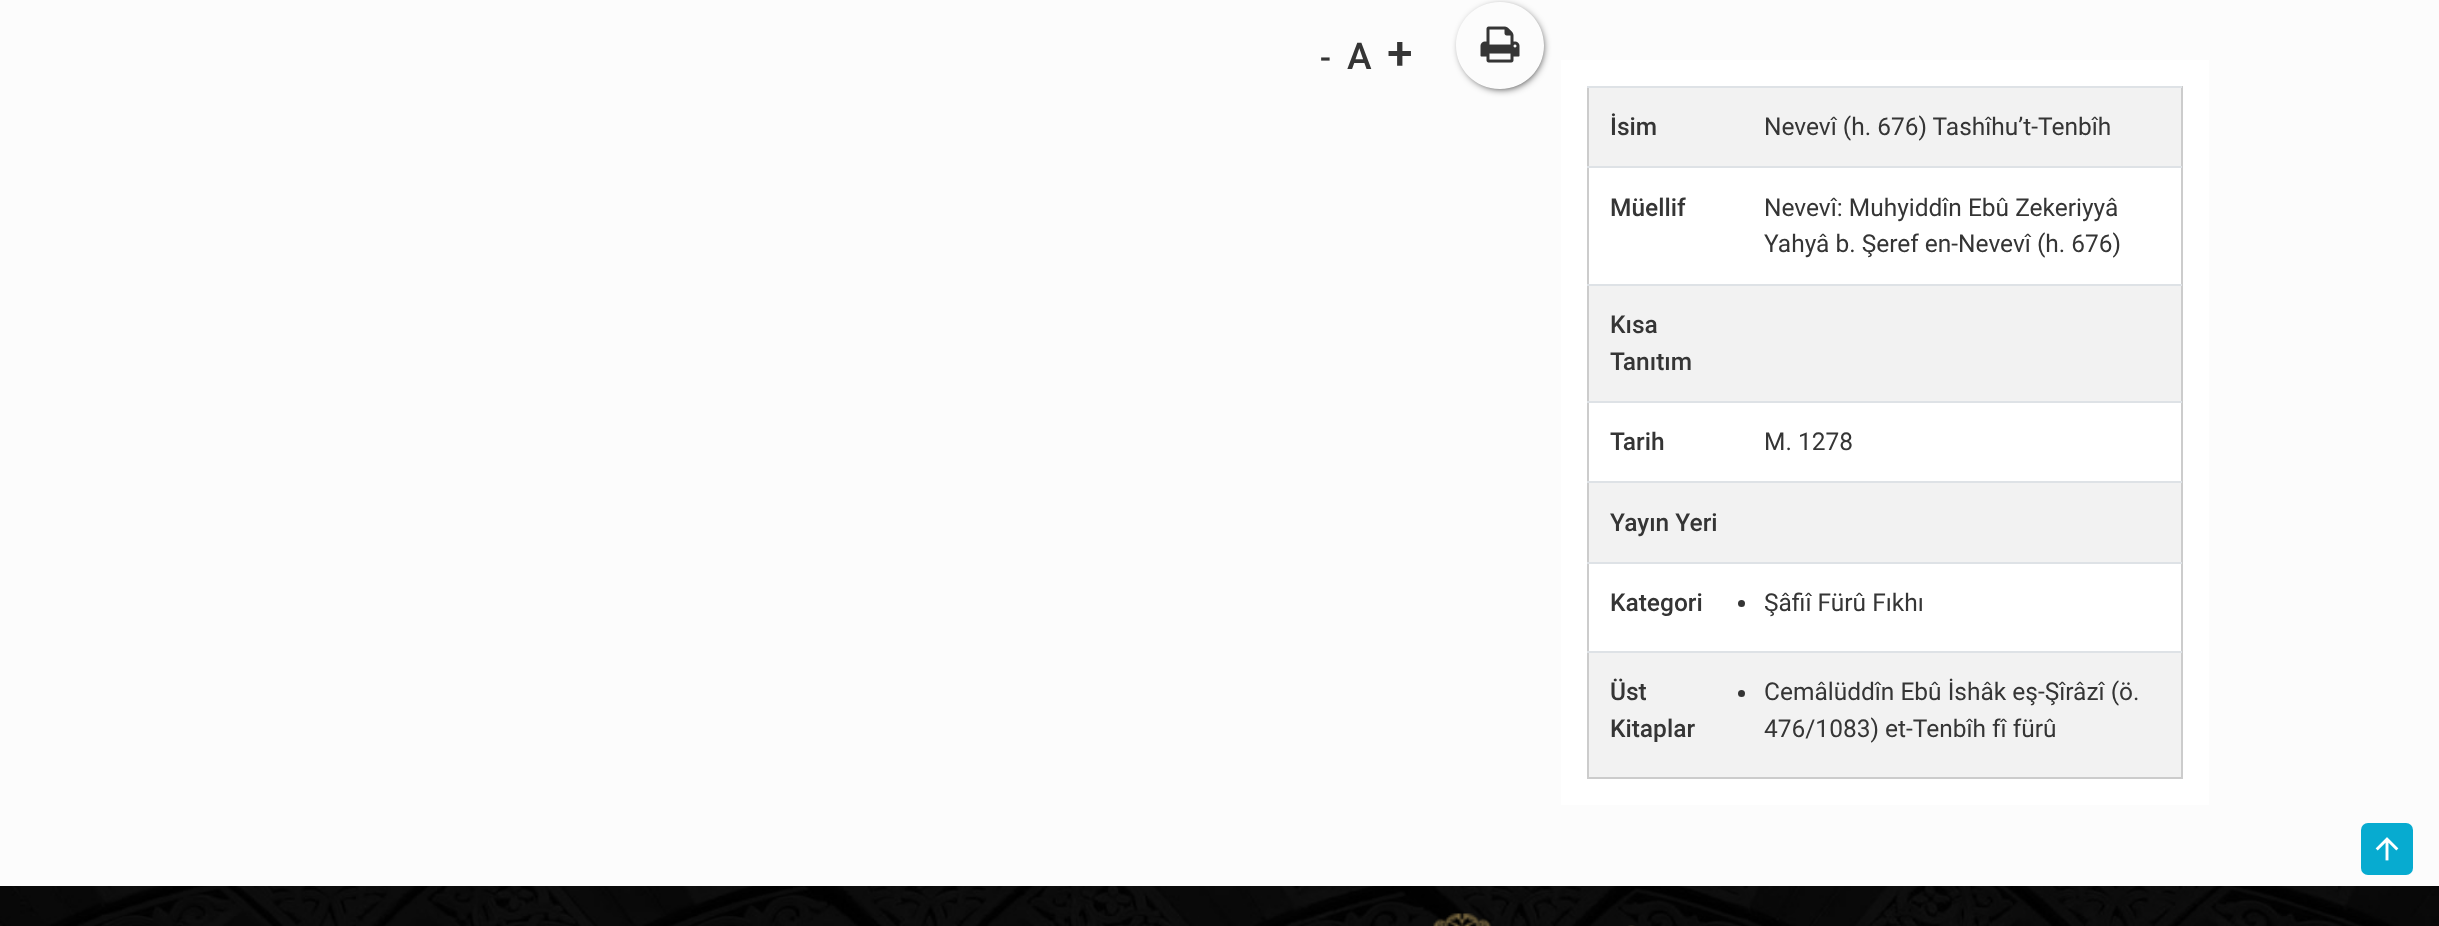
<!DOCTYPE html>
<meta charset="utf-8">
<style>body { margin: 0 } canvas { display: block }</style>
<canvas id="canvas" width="2439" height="926"></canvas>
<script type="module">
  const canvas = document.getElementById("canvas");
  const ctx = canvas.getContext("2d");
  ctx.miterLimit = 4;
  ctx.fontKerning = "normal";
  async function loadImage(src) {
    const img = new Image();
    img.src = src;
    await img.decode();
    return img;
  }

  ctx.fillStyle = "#ffffff";
  ctx.fillRect(0, 0, 2439, 926);
  ctx.fillStyle = "#fcfcfc";
  ctx.fillRect(0, 0, 2439, 886);
  ctx.font = "500 33px Roboto";
  ctx.fillStyle = "#353535";
  ctx.fillText("-", 1320, 69);
  ctx.font = "500 37px Roboto";
  ctx.fillText("A", 1347, 69);
  ctx.font = "500 46px Roboto";
  ctx.fillText("+", 1387, 69);
  ctx.save();
  ctx.beginPath();
  ctx.moveTo(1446, 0);
  ctx.lineTo(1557, 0);
  ctx.lineTo(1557, 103);
  ctx.lineTo(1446, 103);
  ctx.closePath();
  ctx.moveTo(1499.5, 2);
  ctx.lineTo(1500.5, 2);
  ctx.bezierCurveTo(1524.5, 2, 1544, 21.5, 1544, 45.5);
  ctx.bezierCurveTo(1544, 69.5, 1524.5, 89, 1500.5, 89);
  ctx.lineTo(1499.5, 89);
  ctx.bezierCurveTo(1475.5, 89, 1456, 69.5, 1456, 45.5);
  ctx.bezierCurveTo(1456, 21.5, 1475.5, 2, 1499.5, 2);
  ctx.closePath();
  ctx.clip("evenodd");
  ctx.fillStyle = "#000000";
  ctx.filter = "blur(4.5px)";
  ctx.beginPath();
  ctx.roundRect(1461, 7, 81, 81, 40.5);
  ctx.fill();
  ctx.filter = "none";
  ctx.restore();
  ctx.drawImage(await loadImage("img1.png"), 1480, 26, 40, 37);
  ctx.fillStyle = "#ffffff";
  ctx.fillRect(1561, 60, 648, 745);
  ctx.fillStyle = "#cccccc";
  ctx.fillRect(2181, 86, 2, 693);
  ctx.fillRect(1587, 777, 595, 2);
  ctx.fillRect(1587, 86, 2, 693);
  ctx.fillStyle = "#f2f2f2";
  ctx.fillRect(1589, 88, 592, 78);
  ctx.font = "500 24.5px Roboto";
  ctx.fillStyle = "#353535";
  ctx.fillText("İsim", 1610, 135);
  ctx.fillStyle = "#dee2e6";
  ctx.fillRect(1587, 86, 595, 2);
  ctx.font = "24.5px Roboto";
  ctx.fillStyle = "#353535";
  ctx.fillText("Nevevî (h. 676) Tashîhu’t-Tenbîh", 1764, 135);
  ctx.font = "500 24.5px Roboto";
  ctx.fillText("Müellif", 1610, 216);
  ctx.fillStyle = "#dee2e6";
  ctx.fillRect(1587, 166, 595, 2);
  ctx.font = "24.5px Roboto";
  ctx.fillStyle = "#353535";
  ctx.fillText("Nevevî: Muhyiddîn Ebû Zekeriyyâ", 1764, 216);
  ctx.fillText("Yahyâ b. Şeref en-Nevevî (h. 676)", 1764, 252);
  ctx.fillStyle = "#f2f2f2";
  ctx.fillRect(1589, 286, 592, 115);
  ctx.fillStyle = "#dee2e6";
  ctx.fillRect(1587, 284, 595, 2);
  ctx.font = "500 24.5px Roboto";
  ctx.fillStyle = "#353535";
  ctx.fillText("Kısa", 1610, 333);
  ctx.fillText("Tanıtım", 1610, 370);
  ctx.fillText("Tarih", 1610, 450);
  ctx.fillStyle = "#dee2e6";
  ctx.fillRect(1587, 401, 595, 2);
  ctx.font = "24.5px Roboto";
  ctx.fillStyle = "#353535";
  ctx.fillText("M. 1278", 1764, 450);
  ctx.fillStyle = "#f2f2f2";
  ctx.fillRect(1589, 483, 592, 79);
  ctx.fillStyle = "#dee2e6";
  ctx.fillRect(1587, 481, 595, 2);
  ctx.font = "500 24.5px Roboto";
  ctx.fillStyle = "#353535";
  ctx.fillText("Yayın Yeri", 1610, 531);
  ctx.fillText("Kategori", 1610, 611);
  ctx.fillStyle = "#dee2e6";
  ctx.fillRect(1587, 562, 595, 2);
  ctx.fillStyle = "#353535";
  ctx.beginPath();
  ctx.arc(1741.5, 603.5, 3.5, 0, Math.PI * 2);
  ctx.fill();
  ctx.font = "24.5px Roboto";
  ctx.fillText("Şâfiî Fürû Fıkhı", 1764, 611);
  ctx.fillStyle = "#f2f2f2";
  ctx.fillRect(1589, 653, 592, 124);
  ctx.font = "500 24.5px Roboto";
  ctx.fillStyle = "#353535";
  ctx.fillText("Üst", 1610, 700);
  ctx.fillText("Kitaplar", 1610, 737);
  ctx.fillStyle = "#dee2e6";
  ctx.fillRect(1587, 651, 595, 2);
  ctx.fillStyle = "#353535";
  ctx.beginPath();
  ctx.arc(1741.5, 693.5, 3.5, 0, Math.PI * 2);
  ctx.fill();
  ctx.font = "24.5px Roboto";
  ctx.fillText("Cemâlüddîn Ebû İshâk eş-Şîrâzî (ö.", 1764, 700);
  ctx.fillText("476/1083) et-Tenbîh fî fürû", 1764, 737);
  ctx.fillStyle = "#07abd0";
  ctx.beginPath();
  ctx.roundRect(2361, 823, 52, 52, 7);
  ctx.fill();
  ctx.drawImage(await loadImage("img2.png"), 2375, 837, 24, 24);
  ctx.drawImage(await loadImage("img3.png"), 0, 886, 2439, 40);
  ctx.drawImage(await loadImage("img4.png"), 1433, 913, 59, 13);
  ctx.drawImage(await loadImage("img5.png"), 1628, 925, 7, 1);
</script>
